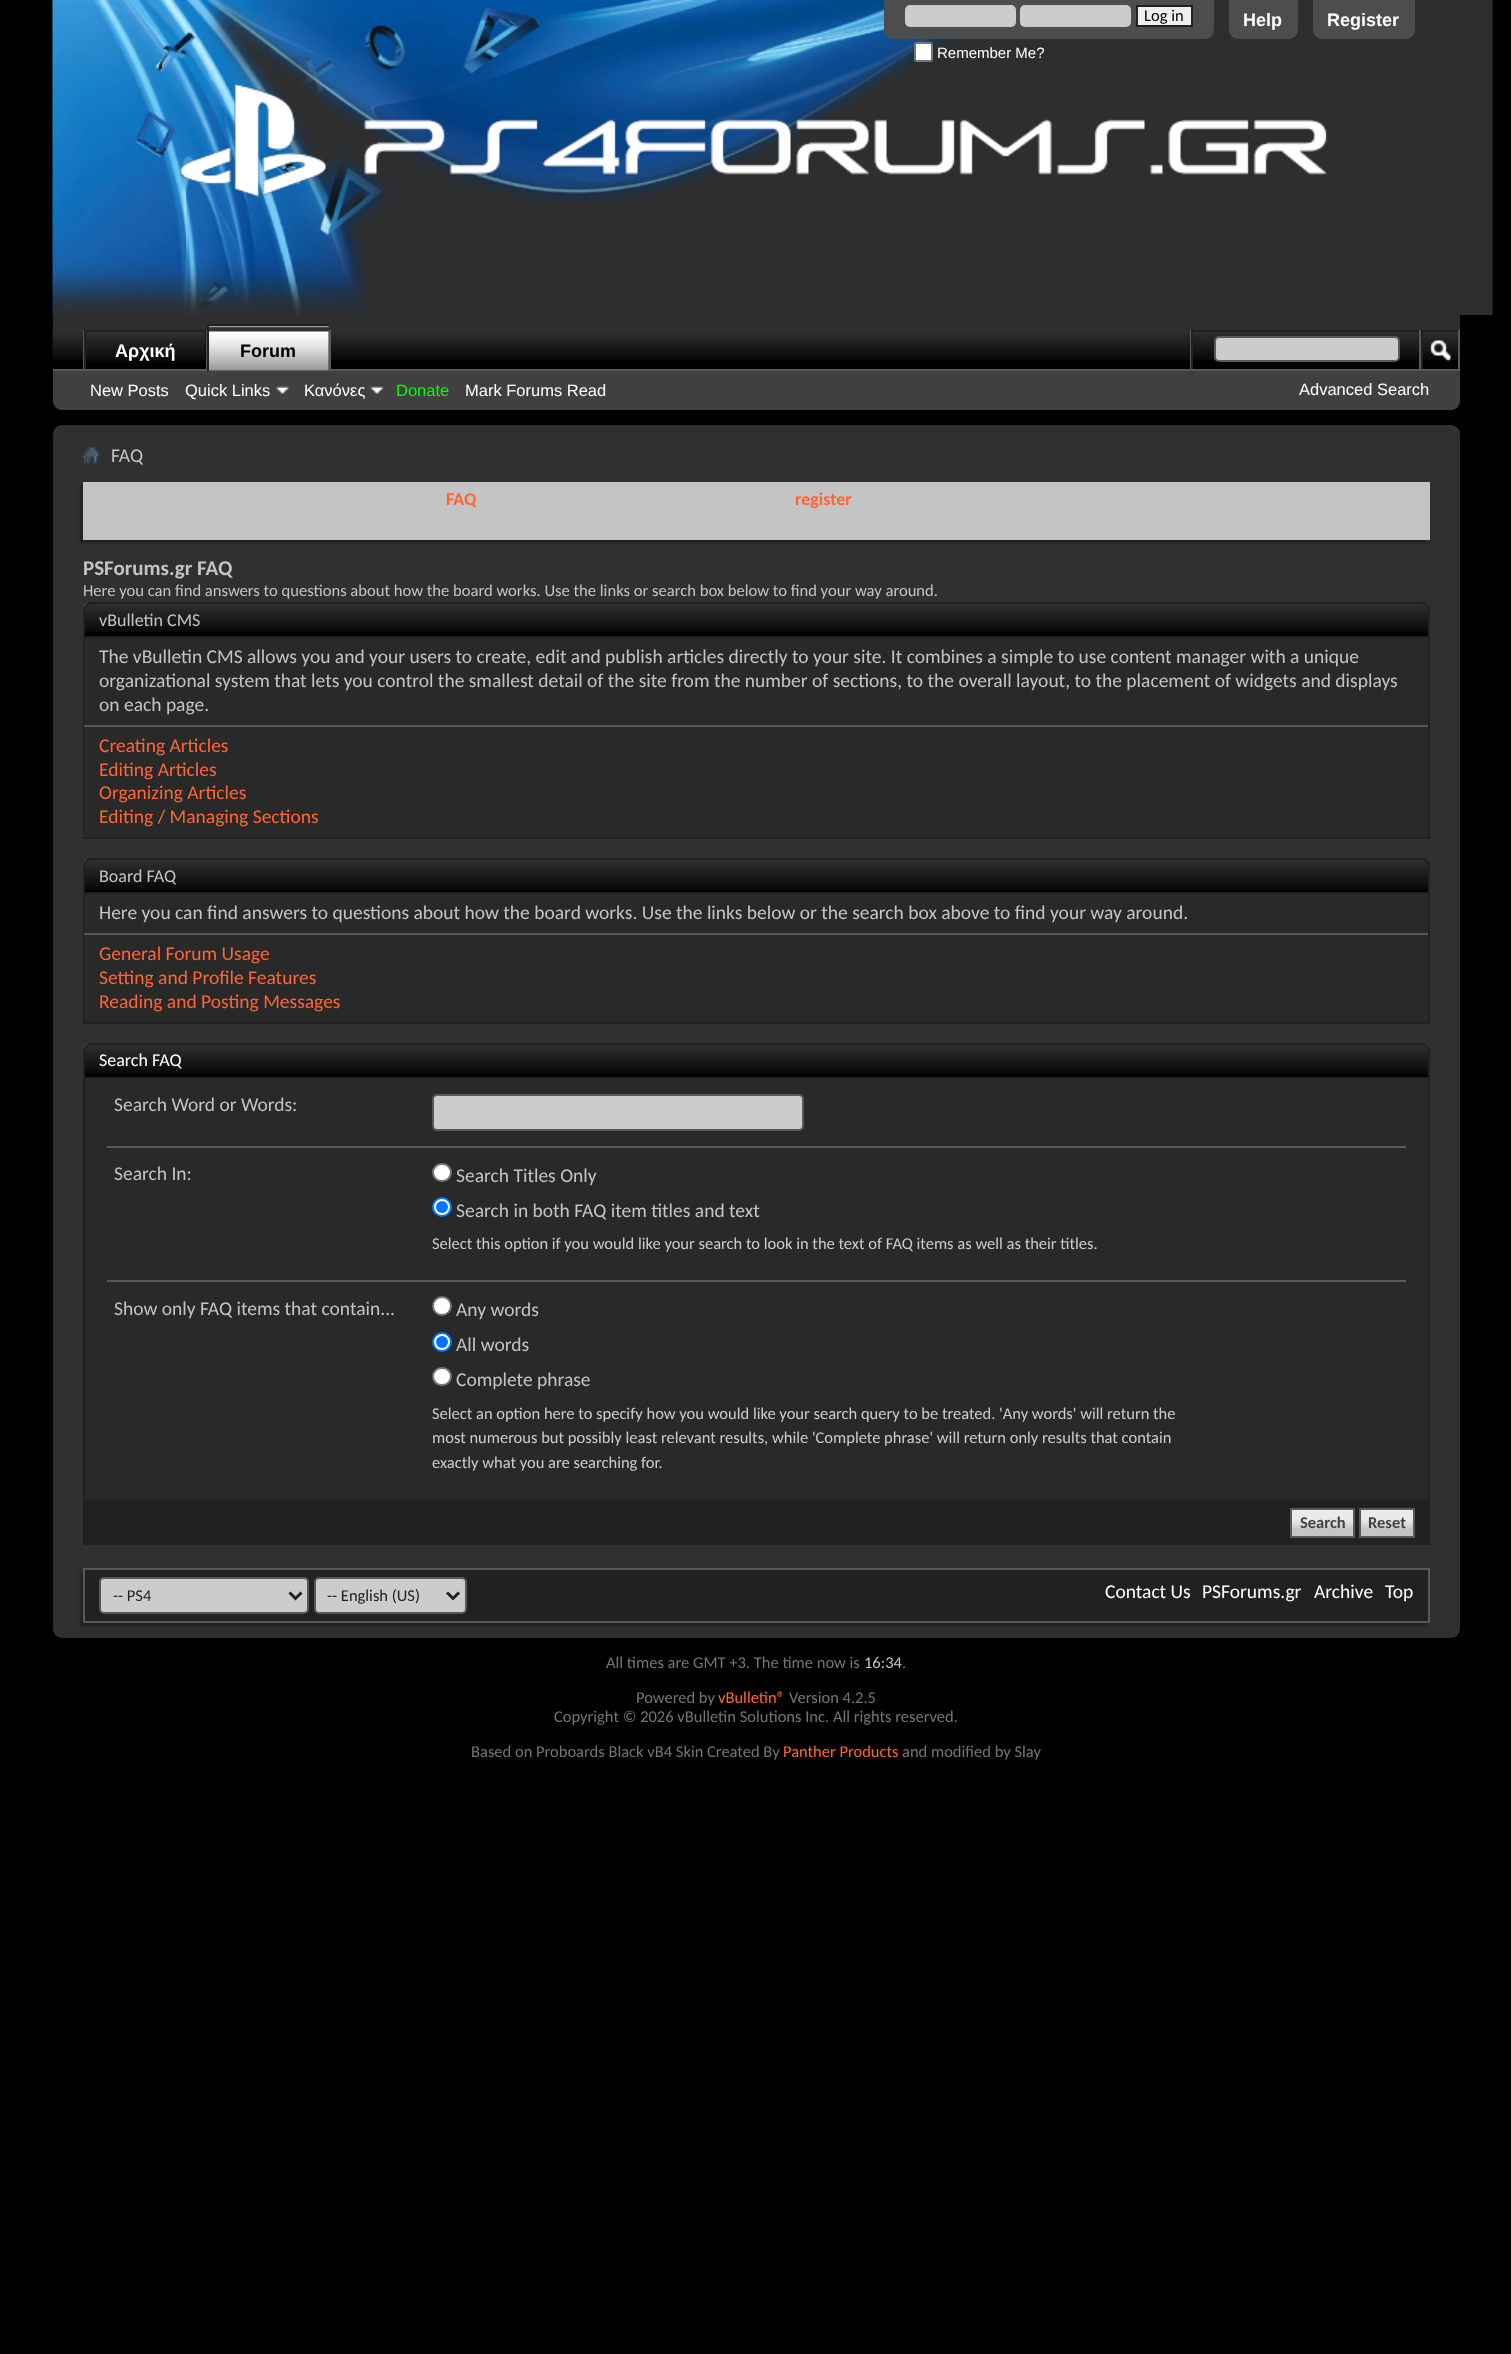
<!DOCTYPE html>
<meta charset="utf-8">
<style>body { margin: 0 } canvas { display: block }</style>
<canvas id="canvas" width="1511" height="2354"></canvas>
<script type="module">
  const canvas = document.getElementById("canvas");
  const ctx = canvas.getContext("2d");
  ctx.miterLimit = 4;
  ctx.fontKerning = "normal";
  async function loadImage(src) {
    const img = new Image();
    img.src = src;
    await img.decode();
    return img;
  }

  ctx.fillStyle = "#000000";
  ctx.fillRect(0, 0, 1511, 2354);
  ctx.fillStyle = "#2e2e2e";
  ctx.beginPath();
  ctx.roundRect(53, 0, 1407, 410, [0, 0, 9, 9]);
  ctx.fill();
  ctx.drawImage(await loadImage("img1.png"), 52, 0, 1441, 315);
  ctx.fillStyle = "#4d4d4d";
  ctx.beginPath();
  ctx.roundRect(884, 0, 330, 39, [0, 0, 9, 9]);
  ctx.fill();
  ctx.fillStyle = "#cccccc";
  ctx.beginPath();
  ctx.roundRect(905, 5, 111, 22, 5);
  ctx.fill();
  ctx.beginPath();
  ctx.roundRect(1020, 5, 111, 22, 5);
  ctx.fill();
  ctx.fillStyle = "#efefef";
  ctx.beginPath();
  ctx.rect(1137, 6, 55, 20);
  ctx.fill();
  ctx.strokeStyle = "#212121";
  ctx.lineWidth = 2;
  ctx.stroke();
  ctx.font = "16.5px Carlito";
  ctx.fillStyle = "#000000";
  ctx.fillText("Log in", 1144, 21);
  ctx.fillStyle = "#ffffff";
  ctx.beginPath();
  ctx.roundRect(915, 43, 17, 18, 2);
  ctx.fill();
  ctx.strokeStyle = "#767676";
  ctx.stroke();
  ctx.font = "15px Liberation Sans";
  ctx.fillText("Remember Me?", 937, 58);
  ctx.fillStyle = "#4d4d4d";
  ctx.beginPath();
  ctx.roundRect(1229, 0, 69, 39, [0, 0, 9, 9]);
  ctx.fill();
  ctx.font = "bold 18px Liberation Sans";
  ctx.fillStyle = "#ffffff";
  ctx.fillText("Help", 1243, 26);
  ctx.fillStyle = "#4d4d4d";
  ctx.beginPath();
  ctx.roundRect(1313, 0, 102, 39, [0, 0, 9, 9]);
  ctx.fill();
  ctx.fillStyle = "#ffffff";
  ctx.fillText("Register", 1327, 26);
  ctx.fillStyle = "#404040";
  ctx.beginPath();
  ctx.roundRect(53, 330, 1407, 80, [0, 0, 9, 9]);
  ctx.fill();
  ctx.fillStyle = "#000000";
  ctx.fillRect(53, 330, 1405, 39);
  ctx.drawImage(await loadImage("img2.png"), 52, 330, 1406, 30);
  ctx.fillStyle = "#585858";
  ctx.fillRect(206, 330, 1, 41);
  ctx.fillRect(83, 330, 1, 41);
  ctx.fillStyle = "#000000";
  ctx.fillRect(86, 332, 120, 28);
  ctx.drawImage(await loadImage("img3.png"), 86, 332, 120, 30);
  ctx.fillStyle = "#212121";
  ctx.fillRect(84, 330, 122, 2);
  ctx.fillRect(84, 330, 2, 41);
  ctx.fillStyle = "#ffffff";
  ctx.fillText("Αρχική", 115, 357);
  ctx.fillStyle = "#585858";
  ctx.fillRect(329, 330, 2, 39);
  ctx.fillRect(53, 369, 1407, 2);
  ctx.fillStyle = "#333333";
  ctx.fillRect(209, 326, 120, 45);
  ctx.drawImage(await loadImage("img4.png"), 209, 326, 120, 45);
  ctx.fillStyle = "#212121";
  ctx.fillRect(207, 324, 122, 2);
  ctx.fillRect(207, 324, 2, 47);
  ctx.fillStyle = "#000000";
  ctx.fillText("Forum", 240, 357);
  ctx.font = "16.5px Liberation Sans";
  ctx.fillStyle = "#ffffff";
  ctx.fillText("New Posts", 90, 396);
  ctx.fillText("Quick Links", 185, 396);
  ctx.drawImage(await loadImage("img5.png"), 275, 386, 15, 8);
  ctx.fillText("Κανόνες", 304, 396);
  ctx.drawImage(await loadImage("img6.png"), 370, 386, 14, 8);
  ctx.fillStyle = "#00ff00";
  ctx.fillText("Donate", 396, 396);
  ctx.fillStyle = "#ffffff";
  ctx.fillText("Mark Forums Read", 465, 396);
  ctx.fillStyle = "#585858";
  ctx.fillRect(1190, 330, 1, 39);
  ctx.fillStyle = "#212121";
  ctx.fillRect(1191, 330, 228, 2);
  ctx.fillRect(1191, 330, 2, 39);
  ctx.fillStyle = "#cccccc";
  ctx.beginPath();
  ctx.roundRect(1215, 337, 184, 24, 4);
  ctx.fill();
  ctx.strokeStyle = "#585858";
  ctx.stroke();
  ctx.fillStyle = "#585858";
  ctx.fillRect(1458, 330, 2, 39);
  ctx.fillRect(1419, 330, 2, 39);
  ctx.fillStyle = "#212121";
  ctx.fillRect(1421, 330, 37, 2);
  ctx.fillRect(1421, 330, 2, 39);
  ctx.drawImage(await loadImage("img7.png"), 1430, 340, 21, 22);
  ctx.fillStyle = "#ffffff";
  ctx.fillText("Advanced Search", 1299, 395);
  ctx.fillStyle = "#303030";
  ctx.beginPath();
  ctx.roundRect(53, 425, 1407, 1213, 9);
  ctx.fill();
  ctx.drawImage(await loadImage("img8.png"), 82, 446, 19, 18);
  ctx.font = "19.5px Carlito";
  ctx.fillStyle = "#c4c4c4";
  ctx.fillText("FAQ", 111, 462);
  ctx.fillStyle = "#212121";
  ctx.filter = "blur(1.5px)";
  ctx.beginPath();
  ctx.rect(80, 485, 1347, 58);
  ctx.fill();
  ctx.filter = "none";
  ctx.fillStyle = "#c4c4c4";
  ctx.fillRect(83, 482, 1347, 58);
  ctx.font = "bold 18px Carlito";
  ctx.fillStyle = "#ff6633";
  ctx.fillText("FAQ", 446, 505);
  ctx.fillText("register", 795, 505);
  ctx.font = "bold 21px Carlito";
  ctx.fillStyle = "#c4c4c4";
  ctx.fillText("PSForums.gr FAQ", 83, 575);
  ctx.font = "16.58px Carlito";
  ctx.fillText("Here you can find answers to questions about how the board works. Use the links or search box below to find your way around.", 83, 596);
  ctx.fillStyle = "#000000";
  ctx.beginPath();
  ctx.roundRect(83, 602, 1347, 36, [9, 9, 0, 0]);
  ctx.fill();
  ctx.drawImage(await loadImage("img9.png"), 82, 603, 1348, 30);
  ctx.beginPath();
  ctx.roundRect(84, 603, 1345, 34, [8, 8, 0, 0]);
  ctx.strokeStyle = "#212121";
  ctx.stroke();
  ctx.font = "18px Carlito";
  ctx.fillStyle = "#c4c4c4";
  ctx.fillText("vBulletin CMS", 99, 626);
  ctx.fillStyle = "#212121";
  ctx.fillRect(1428, 638, 2, 201);
  ctx.fillRect(83, 837, 1347, 2);
  ctx.fillRect(83, 638, 2, 201);
  ctx.fillStyle = "#292929";
  ctx.fillRect(84, 638, 1344, 87);
  ctx.font = "19.5px Carlito";
  ctx.fillStyle = "#c4c4c4";
  ctx.fillText("The vBulletin CMS allows you and your users to create, edit and publish articles directly to your site. It combines a simple to use content manager with a unique", 99, 663);
  ctx.fillText("organizational system that lets you control the smallest detail of the site from the number of sections, to the overall layout, to the placement of widgets and displays", 99, 687);
  ctx.fillText("on each page.", 99, 711);
  ctx.fillStyle = "#292929";
  ctx.fillRect(84, 727, 1344, 110);
  ctx.fillStyle = "#585858";
  ctx.fillRect(84, 725, 1344, 2);
  ctx.fillStyle = "#ff6633";
  ctx.fillText("Creating Articles", 99, 752);
  ctx.fillText("Editing Articles", 99, 776);
  ctx.fillText("Organizing Articles", 99, 799);
  ctx.fillText("Editing / Managing Sections", 99, 823);
  ctx.fillStyle = "#000000";
  ctx.beginPath();
  ctx.roundRect(83, 858, 1347, 36, [9, 9, 0, 0]);
  ctx.fill();
  ctx.drawImage(await loadImage("img10.png"), 82, 859, 1348, 31);
  ctx.beginPath();
  ctx.roundRect(84, 859, 1345, 34, [8, 8, 0, 0]);
  ctx.stroke();
  ctx.font = "18px Carlito";
  ctx.fillStyle = "#c4c4c4";
  ctx.fillText("Board FAQ", 99, 882);
  ctx.fillStyle = "#212121";
  ctx.fillRect(1428, 894, 2, 129);
  ctx.fillRect(83, 1022, 1347, 2);
  ctx.fillRect(83, 894, 2, 129);
  ctx.fillStyle = "#292929";
  ctx.fillRect(84, 894, 1344, 39);
  ctx.font = "19.5px Carlito";
  ctx.fillStyle = "#c4c4c4";
  ctx.fillText("Here you can find answers to questions about how the board works. Use the links below or the search box above to find your way around.", 99, 919);
  ctx.fillStyle = "#292929";
  ctx.fillRect(84, 935, 1344, 87);
  ctx.fillStyle = "#585858";
  ctx.fillRect(84, 933, 1344, 2);
  ctx.fillStyle = "#ff6633";
  ctx.fillText("General Forum Usage", 99, 960);
  ctx.fillText("Setting and Profile Features", 99, 984);
  ctx.fillText("Reading and Posting Messages", 99, 1008);
  ctx.fillStyle = "#000000";
  ctx.beginPath();
  ctx.roundRect(83, 1043, 1347, 36, [9, 9, 0, 0]);
  ctx.fill();
  ctx.drawImage(await loadImage("img9.png"), 82, 1044, 1348, 30);
  ctx.beginPath();
  ctx.roundRect(84, 1044, 1345, 34, [8, 8, 0, 0]);
  ctx.stroke();
  ctx.font = "18px Carlito";
  ctx.fillStyle = "#ffffff";
  ctx.fillText("Search FAQ", 99, 1066);
  ctx.fillStyle = "#292929";
  ctx.fillRect(85, 1079, 1343, 420);
  ctx.fillStyle = "#212121";
  ctx.fillRect(1428, 1079, 2, 421);
  ctx.fillRect(83, 1499, 1347, 46);
  ctx.fillRect(83, 1079, 2, 421);
  ctx.font = "19.5px Carlito";
  ctx.fillStyle = "#c4c4c4";
  ctx.fillText("Search Word or Words:", 114, 1111);
  ctx.fillStyle = "#cccccc";
  ctx.beginPath();
  ctx.roundRect(433, 1095, 370, 35, 4);
  ctx.fill();
  ctx.strokeStyle = "#585858";
  ctx.stroke();
  ctx.fillStyle = "#585858";
  ctx.fillRect(107, 1146, 1299, 2);
  ctx.fillStyle = "#c4c4c4";
  ctx.fillText("Search In:", 114, 1180);
  ctx.fillStyle = "#ffffff";
  ctx.beginPath();
  ctx.roundRect(433, 1164, 18, 17, 8.5);
  ctx.fill();
  ctx.strokeStyle = "#767676";
  ctx.stroke();
  ctx.fillStyle = "#c4c4c4";
  ctx.fillText("Search Titles Only", 456, 1182);
  ctx.fillStyle = "#ffffff";
  ctx.beginPath();
  ctx.arc(442, 1207, 9, 0, Math.PI * 2);
  ctx.fill();
  ctx.strokeStyle = "#0075ff";
  ctx.stroke();
  ctx.fillStyle = "#0075ff";
  ctx.beginPath();
  ctx.arc(442, 1207, 6, 0, Math.PI * 2);
  ctx.fill();
  ctx.fillStyle = "#c4c4c4";
  ctx.fillText("Search in both FAQ item titles and text", 456, 1217);
  ctx.font = "16.5px Carlito";
  ctx.fillStyle = "#cccccc";
  ctx.fillText("Select this option if you would like your search to look in the text of FAQ items as well as their titles.", 432, 1249);
  ctx.fillStyle = "#585858";
  ctx.fillRect(107, 1280, 1299, 2);
  ctx.font = "19.5px Carlito";
  ctx.fillStyle = "#c4c4c4";
  ctx.fillText("Show only FAQ items that contain...", 114, 1315);
  ctx.fillStyle = "#ffffff";
  ctx.beginPath();
  ctx.arc(442, 1306, 9, 0, Math.PI * 2);
  ctx.fill();
  ctx.strokeStyle = "#767676";
  ctx.stroke();
  ctx.fillStyle = "#c4c4c4";
  ctx.fillText("Any words", 456, 1316);
  ctx.fillStyle = "#ffffff";
  ctx.beginPath();
  ctx.arc(442, 1342, 9, 0, Math.PI * 2);
  ctx.fill();
  ctx.strokeStyle = "#0075ff";
  ctx.stroke();
  ctx.fillStyle = "#0075ff";
  ctx.beginPath();
  ctx.arc(442, 1342, 6, 0, Math.PI * 2);
  ctx.fill();
  ctx.fillStyle = "#c4c4c4";
  ctx.fillText("All words", 456, 1351);
  ctx.fillStyle = "#ffffff";
  ctx.beginPath();
  ctx.roundRect(433, 1368, 18, 17, 8.5);
  ctx.fill();
  ctx.strokeStyle = "#767676";
  ctx.stroke();
  ctx.fillStyle = "#c4c4c4";
  ctx.fillText("Complete phrase", 456, 1386);
  ctx.font = "16.5px Carlito";
  ctx.fillStyle = "#cccccc";
  ctx.fillText("Select an option here to specify how you would like your search query to be treated. 'Any words' will return the", 432, 1419);
  ctx.fillText("most numerous but possibly least relevant results, while 'Complete phrase' will return only results that contain", 432, 1443);
  ctx.fillText("exactly what you are searching for.", 432, 1468);
  ctx.fillStyle = "#c4c4c4";
  ctx.fillRect(1292, 1510, 61, 26);
  ctx.drawImage(await loadImage("img11.png"), 1292, 1510, 61, 19);
  ctx.strokeStyle = "#585858";
  ctx.strokeRect(1291, 1509, 63, 28);
  ctx.font = "bold 16.5px Carlito";
  ctx.fillStyle = "#424242";
  ctx.fillText("Search", 1300, 1528);
  ctx.fillStyle = "#c4c4c4";
  ctx.fillRect(1361, 1510, 52, 26);
  ctx.drawImage(await loadImage("img12.png"), 1361, 1510, 52, 19);
  ctx.strokeRect(1360, 1509, 54, 28);
  ctx.fillStyle = "#424242";
  ctx.fillText("Reset", 1368, 1528);
  ctx.fillStyle = "#212121";
  ctx.filter = "blur(1.5px)";
  ctx.beginPath();
  ctx.rect(80, 1571, 1347, 55);
  ctx.fill();
  ctx.filter = "none";
  ctx.beginPath();
  ctx.rect(84, 1569, 1345, 53);
  ctx.fill();
  ctx.stroke();
  ctx.fillStyle = "#cccccc";
  ctx.beginPath();
  ctx.roundRect(100, 1578, 208, 35, 4);
  ctx.fill();
  ctx.stroke();
  ctx.beginPath();
  ctx.moveTo(289.5, 1592.5);
  ctx.lineTo(295.5, 1598.5);
  ctx.lineTo(301.5, 1592.5);
  ctx.strokeStyle = "#212121";
  ctx.lineWidth = 3;
  ctx.stroke();
  ctx.font = "16.5px Carlito";
  ctx.fillStyle = "#212121";
  ctx.fillText("-- PS4", 113, 1601);
  ctx.fillStyle = "#cccccc";
  ctx.beginPath();
  ctx.roundRect(315, 1578, 151, 35, 4);
  ctx.fill();
  ctx.strokeStyle = "#585858";
  ctx.lineWidth = 2;
  ctx.stroke();
  ctx.beginPath();
  ctx.moveTo(447, 1592.5);
  ctx.lineTo(453, 1598.5);
  ctx.lineTo(459, 1592.5);
  ctx.strokeStyle = "#212121";
  ctx.lineWidth = 3;
  ctx.stroke();
  ctx.fillStyle = "#212121";
  ctx.fillText("-- English (US)", 327, 1601);
  ctx.font = "19.5px Carlito";
  ctx.fillStyle = "#ffffff";
  ctx.fillText("Contact Us", 1105, 1598);
  ctx.fillText("PSForums.gr", 1202, 1598);
  ctx.fillText("Archive", 1314, 1598);
  ctx.fillText("Top", 1385, 1598);
  ctx.font = "16.5px Carlito";
  ctx.fillStyle = "#757575";
  ctx.fillText("All times are GMT +3. The time now is", 606, 1668);
  ctx.fillStyle = "#c4c4c4";
  ctx.fillText("16:34", 864, 1668);
  ctx.fillStyle = "#757575";
  ctx.fillText(".", 902, 1668);
  ctx.fillText("Powered by", 636, 1703);
  ctx.fillStyle = "#ff6633";
  ctx.fillText("vBulletin®", 718, 1703);
  ctx.fillStyle = "#757575";
  ctx.fillText("Version 4.2.5", 789, 1703);
  ctx.fillText("Copyright © 2026 vBulletin Solutions Inc. All rights reserved.", 554, 1722);
  ctx.fillText("Based on Proboards Black vB4 Skin Created By", 471, 1757);
  ctx.fillStyle = "#ff6633";
  ctx.fillText("Panther Products", 783, 1757);
  ctx.fillStyle = "#757575";
  ctx.fillText("and modified by Slay", 902, 1757);
</script>
